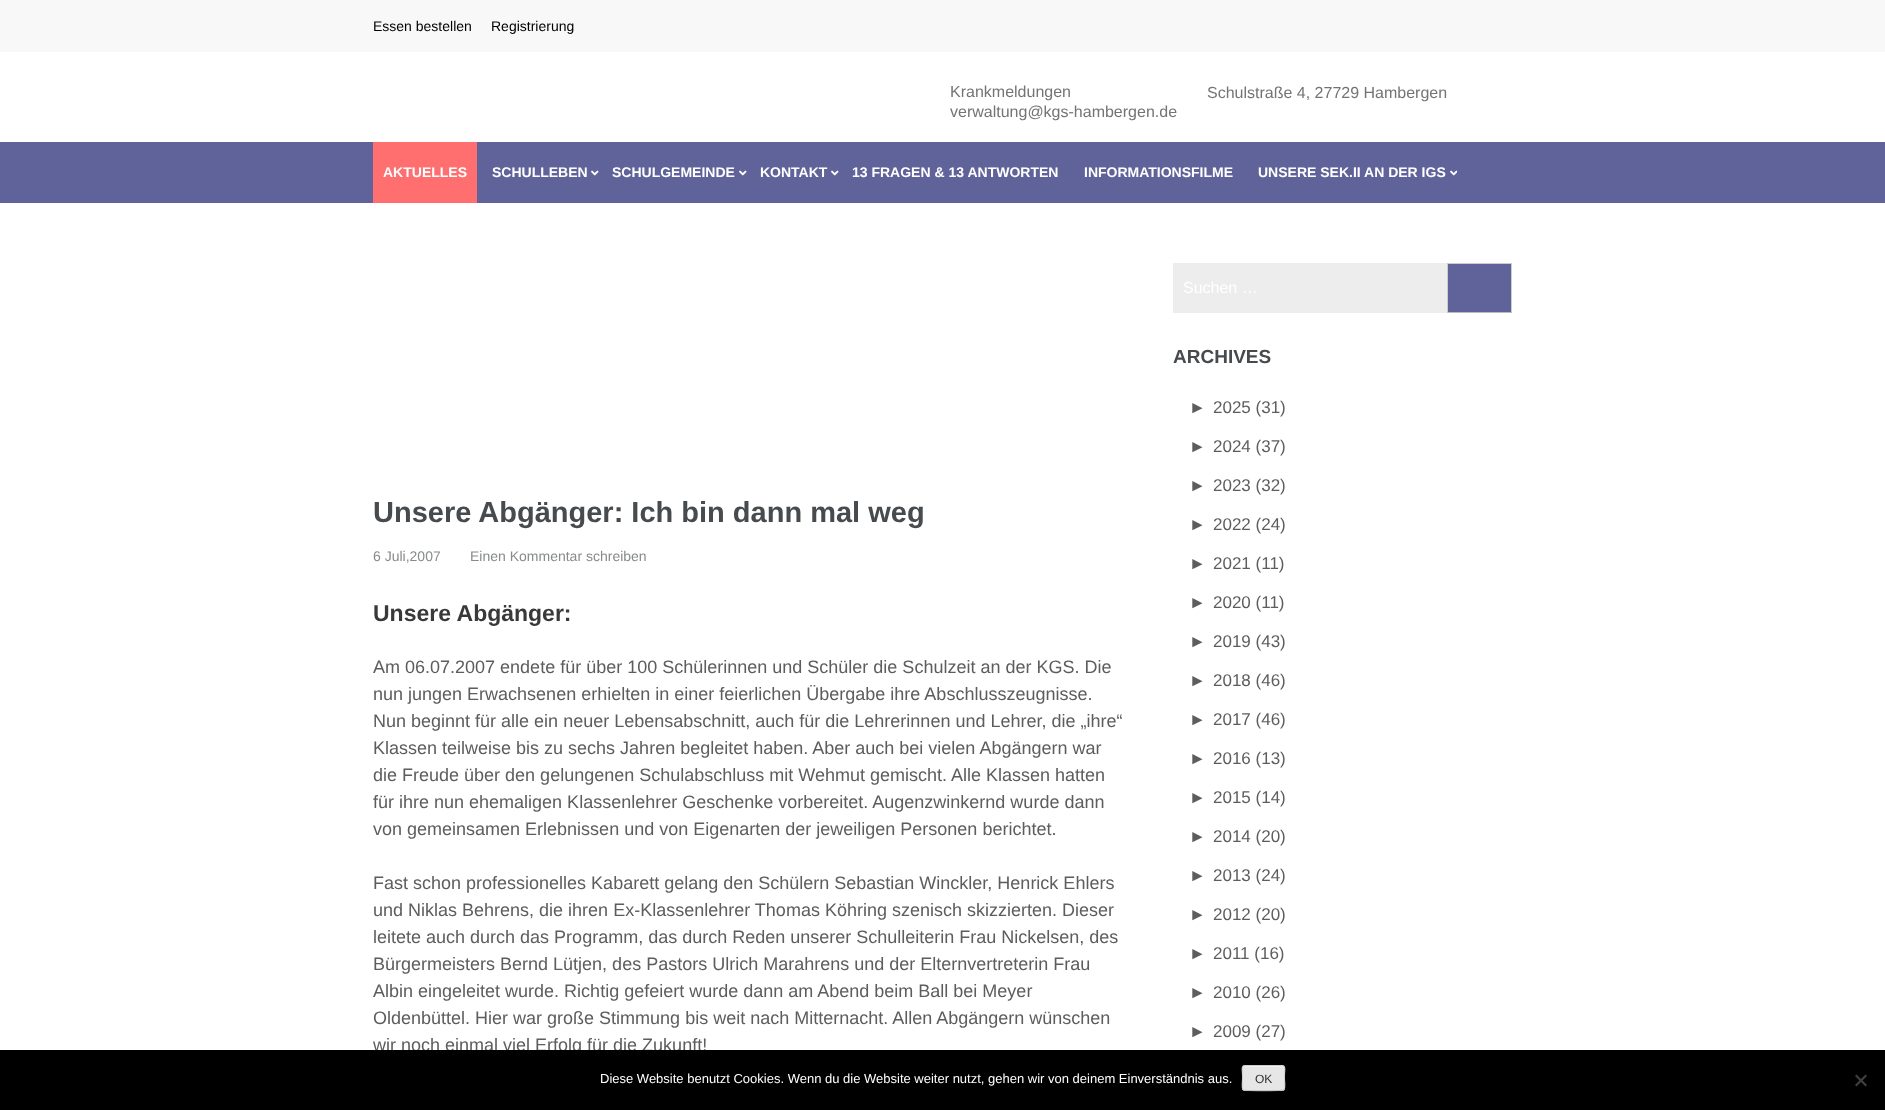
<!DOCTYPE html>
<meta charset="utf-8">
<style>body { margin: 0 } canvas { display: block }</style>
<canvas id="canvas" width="1885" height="1110"></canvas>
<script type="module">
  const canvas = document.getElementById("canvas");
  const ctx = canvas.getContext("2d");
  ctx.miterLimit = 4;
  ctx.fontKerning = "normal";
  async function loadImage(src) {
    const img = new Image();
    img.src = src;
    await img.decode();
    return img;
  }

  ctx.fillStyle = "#ffffff";
  ctx.fillRect(0, 0, 1885, 1110);
  ctx.fillStyle = "#f8f8f8";
  ctx.fillRect(0, 0, 1885, 52);
  ctx.font = "14px Liberation Sans";
  ctx.fillStyle = "#000000";
  ctx.fillText("Essen bestellen", 373, 31);
  ctx.fillText("Registrierung", 491, 31);
  ctx.font = "16px Liberation Sans";
  ctx.fillStyle = "#747474";
  ctx.fillText("Krankmeldungen", 950, 97);
  ctx.fillText("verwaltung@kgs-hambergen.de", 950, 117);
  ctx.fillText("Schulstraße 4, 27729 Hambergen", 1207, 98);
  ctx.fillStyle = "#60639a";
  ctx.fillRect(0, 142, 1885, 61);
  ctx.fillStyle = "#ff6f6f";
  ctx.fillRect(373, 142, 104, 61);
  ctx.font = "bold 14px Liberation Sans";
  ctx.fillStyle = "#ffffff";
  ctx.fillText("AKTUELLES", 383, 177);
  ctx.fillText("SCHULLEBEN", 492, 177);
  ctx.drawImage(await loadImage("img1.png"), 591, 170, 8, 6);
  ctx.fillText("SCHULGEMEINDE", 612, 177);
  ctx.drawImage(await loadImage("img1.png"), 739, 170, 8, 6);
  ctx.fillText("KONTAKT", 760, 177);
  ctx.drawImage(await loadImage("img1.png"), 831, 170, 8, 6);
  ctx.fillText("13 FRAGEN & 13 ANTWORTEN", 852, 177);
  ctx.fillText("INFORMATIONSFILME", 1084, 177);
  ctx.fillText("UNSERE SEK.II AN DER IGS", 1258, 177);
  ctx.drawImage(await loadImage("img2.png"), 1450, 170, 7, 6);
  ctx.font = "bold 29px Liberation Sans";
  ctx.fillStyle = "#474b4e";
  ctx.fillText("Unsere Abgänger: Ich bin dann mal weg", 373, 522);
  ctx.font = "14px Liberation Sans";
  ctx.fillStyle = "#878b8d";
  ctx.fillText("6 Juli,2007", 373, 561);
  ctx.fillText("Einen Kommentar schreiben", 470, 561);
  ctx.font = "bold 23px Liberation Sans";
  ctx.fillStyle = "#393939";
  ctx.fillText("Unsere Abgänger:", 373, 621);
  ctx.font = "18px Liberation Sans";
  ctx.fillStyle = "#5d5d5d";
  ctx.fillText("Am 06.07.2007 endete für über 100 Schülerinnen und Schüler die Schulzeit an der KGS. Die", 373, 673);
  ctx.fillText("nun jungen Erwachsenen erhielten in einer feierlichen Übergabe ihre Abschlusszeugnisse.", 373, 700);
  ctx.fillText("Nun beginnt für alle ein neuer Lebensabschnitt, auch für die Lehrerinnen und Lehrer, die „ihre“", 373, 727);
  ctx.fillText("Klassen teilweise bis zu sechs Jahren begleitet haben. Aber auch bei vielen Abgängern war", 373, 754);
  ctx.fillText("die Freude über den gelungenen Schulabschluss mit Wehmut gemischt. Alle Klassen hatten", 373, 781);
  ctx.fillText("für ihre nun ehemaligen Klassenlehrer Geschenke vorbereitet. Augenzwinkernd wurde dann", 373, 808);
  ctx.fillText("von gemeinsamen Erlebnissen und von Eigenarten der jeweiligen Personen berichtet.", 373, 835);
  ctx.fillText("Fast schon professionelles Kabarett gelang den Schülern Sebastian Winckler, Henrick Ehlers", 373, 889);
  ctx.fillText("und Niklas Behrens, die ihren Ex-Klassenlehrer Thomas Köhring szenisch skizzierten. Dieser", 373, 916);
  ctx.fillText("leitete auch durch das Programm, das durch Reden unserer Schulleiterin Frau Nickelsen, des", 373, 943);
  ctx.fillText("Bürgermeisters Bernd Lütjen, des Pastors Ulrich Marahrens und der Elternvertreterin Frau", 373, 970);
  ctx.fillText("Albin eingeleitet wurde. Richtig gefeiert wurde dann am Abend beim Ball bei Meyer", 373, 997);
  ctx.fillText("Oldenbüttel. Hier war große Stimmung bis weit nach Mitternacht. Allen Abgängern wünschen", 373, 1024);
  ctx.fillText("wir noch einmal viel Erfolg für die Zukunft!", 373, 1051);
  ctx.fillStyle = "#ededed";
  ctx.fillRect(1173, 263, 274, 50);
  ctx.font = "16px Liberation Sans";
  ctx.fillStyle = "#ffffff";
  ctx.fillText("Suchen …", 1183, 293);
  ctx.fillStyle = "#60639a";
  ctx.fillRect(1448, 264, 63, 48);
  ctx.fillStyle = "#cccccc";
  ctx.fillRect(1447, 263, 65, 1);
  ctx.fillRect(1511, 263, 1, 50);
  ctx.fillStyle = "#bbbbbb";
  ctx.fillRect(1447, 312, 65, 1);
  ctx.fillStyle = "#cccccc";
  ctx.fillRect(1447, 263, 1, 50);
  ctx.font = "bold 19px Liberation Sans";
  ctx.fillStyle = "#474b4e";
  ctx.fillText("ARCHIVES", 1173, 363);
  ctx.font = "17px Liberation Sans";
  ctx.fillStyle = "#5d5d5d";
  ctx.fillText("►", 1189, 413);
  ctx.fillText("2025 (31)", 1213, 413);
  ctx.fillText("►", 1189, 452);
  ctx.fillText("2024 (37)", 1213, 452);
  ctx.fillText("►", 1189, 491);
  ctx.fillText("2023 (32)", 1213, 491);
  ctx.fillText("►", 1189, 530);
  ctx.fillText("2022 (24)", 1213, 530);
  ctx.fillText("►", 1189, 569);
  ctx.fillText("2021 (11)", 1213, 569);
  ctx.fillText("►", 1189, 608);
  ctx.fillText("2020 (11)", 1213, 608);
  ctx.fillText("►", 1189, 647);
  ctx.fillText("2019 (43)", 1213, 647);
  ctx.fillText("►", 1189, 686);
  ctx.fillText("2018 (46)", 1213, 686);
  ctx.fillText("►", 1189, 725);
  ctx.fillText("2017 (46)", 1213, 725);
  ctx.fillText("►", 1189, 764);
  ctx.fillText("2016 (13)", 1213, 764);
  ctx.fillText("►", 1189, 803);
  ctx.fillText("2015 (14)", 1213, 803);
  ctx.fillText("►", 1189, 842);
  ctx.fillText("2014 (20)", 1213, 842);
  ctx.fillText("►", 1189, 881);
  ctx.fillText("2013 (24)", 1213, 881);
  ctx.fillText("►", 1189, 920);
  ctx.fillText("2012 (20)", 1213, 920);
  ctx.fillText("►", 1189, 959);
  ctx.fillText("2011 (16)", 1213, 959);
  ctx.fillText("►", 1189, 998);
  ctx.fillText("2010 (26)", 1213, 998);
  ctx.fillText("►", 1189, 1037);
  ctx.fillText("2009 (27)", 1213, 1037);
  ctx.fillStyle = "#000000";
  ctx.fillRect(0, 1050, 1885, 60);
  ctx.font = "13px Liberation Sans";
  ctx.fillStyle = "#ffffff";
  ctx.fillText("Diese Website benutzt Cookies. Wenn du die Website weiter nutzt, gehen wir von deinem Einverständnis aus.", 600, 1083);
  ctx.fillStyle = "#e6e6e6";
  ctx.beginPath();
  ctx.roundRect(1242, 1065, 43, 26, 3);
  ctx.fill();
  ctx.fillStyle = "#f3f3f3";
  ctx.beginPath();
  ctx.moveTo(1245, 1067);
  ctx.lineTo(1282, 1067);
  ctx.bezierCurveTo(1283, 1067, 1284, 1068, 1284, 1069);
  ctx.bezierCurveTo(1284, 1064, 1280, 1066, 1276, 1066);
  ctx.lineTo(1251, 1066);
  ctx.bezierCurveTo(1247, 1066, 1243, 1064, 1243, 1069);
  ctx.bezierCurveTo(1243, 1068, 1244, 1067, 1245, 1067);
  ctx.closePath();
  ctx.fill();
  ctx.beginPath();
  ctx.moveTo(1284, 1090);
  ctx.bezierCurveTo(1282.5, 1091, 1244.5, 1091, 1243, 1090);
  ctx.strokeStyle = "#bbbbbb";
  ctx.stroke();
  ctx.beginPath();
  ctx.moveTo(1243, 1090);
  ctx.bezierCurveTo(1241.5, 1088, 1242.5, 1080.5, 1242.5, 1078);
  ctx.bezierCurveTo(1242.5, 1065.5, 1239.5, 1065.5, 1251, 1065.5);
  ctx.lineTo(1276, 1065.5);
  ctx.bezierCurveTo(1287.5, 1065.5, 1284.5, 1065.5, 1284.5, 1078);
  ctx.bezierCurveTo(1284.5, 1080.5, 1285.5, 1088, 1284, 1090);
  ctx.strokeStyle = "#cccccc";
  ctx.stroke();
  ctx.font = "12px Liberation Sans";
  ctx.fillStyle = "#2e2e2e";
  ctx.fillText("OK", 1255, 1083);
  ctx.fillStyle = "#404040";
  ctx.beginPath();
  ctx.moveTo(1865.5, 1074.5);
  ctx.lineTo(1867, 1076);
  ctx.lineTo(1856.5, 1086.5);
  ctx.lineTo(1855, 1085);
  ctx.closePath();
  ctx.fill();
  ctx.beginPath();
  ctx.moveTo(1855, 1076);
  ctx.lineTo(1856.5, 1074.5);
  ctx.lineTo(1867, 1085);
  ctx.lineTo(1865.5, 1086.5);
  ctx.closePath();
  ctx.fill();
</script>
